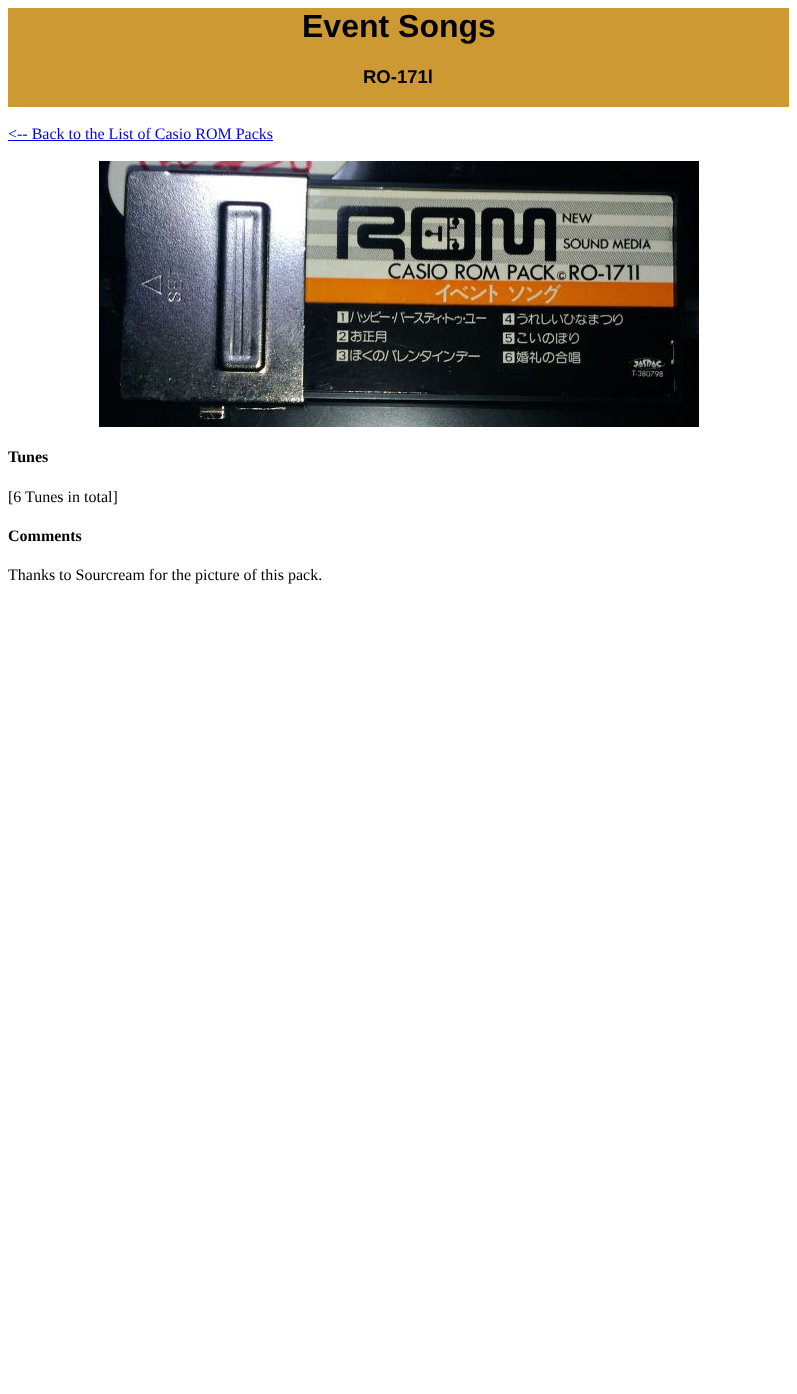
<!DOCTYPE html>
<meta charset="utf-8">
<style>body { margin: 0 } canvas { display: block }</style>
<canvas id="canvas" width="797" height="1394"></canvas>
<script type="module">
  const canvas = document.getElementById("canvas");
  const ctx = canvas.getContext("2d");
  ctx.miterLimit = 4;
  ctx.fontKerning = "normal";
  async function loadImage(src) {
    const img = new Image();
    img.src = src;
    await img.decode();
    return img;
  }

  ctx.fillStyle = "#ffffff";
  ctx.fillRect(0, 0, 797, 1394);
  ctx.fillStyle = "#cc9933";
  ctx.fillRect(8, 8, 781, 99);
  ctx.font = "bold 32px Liberation Sans";
  ctx.fillStyle = "#000000";
  ctx.fillText("Event Songs", 302, 37);
  ctx.font = "bold 18.5px Liberation Sans";
  ctx.fillText("RO-171l", 363, 83);
  ctx.font = "16px Liberation Serif";
  ctx.fillStyle = "#0000ee";
  ctx.fillText("<-- Back to the List of Casio ROM Packs", 8, 139);
  ctx.fillRect(8, 140, 265, 1);
  ctx.drawImage(await loadImage("img1.png"), 99, 161, 600, 266);
  ctx.font = "bold 16px Liberation Serif";
  ctx.fillStyle = "#000000";
  ctx.fillText("Tunes", 8, 462);
  ctx.font = "16px Liberation Serif";
  ctx.fillText("[6 Tunes in total]", 8, 502);
  ctx.font = "bold 16px Liberation Serif";
  ctx.fillText("Comments", 8, 541);
  ctx.font = "16px Liberation Serif";
  ctx.fillText("Thanks to Sourcream for the picture of this pack.", 8, 580);
</script>
